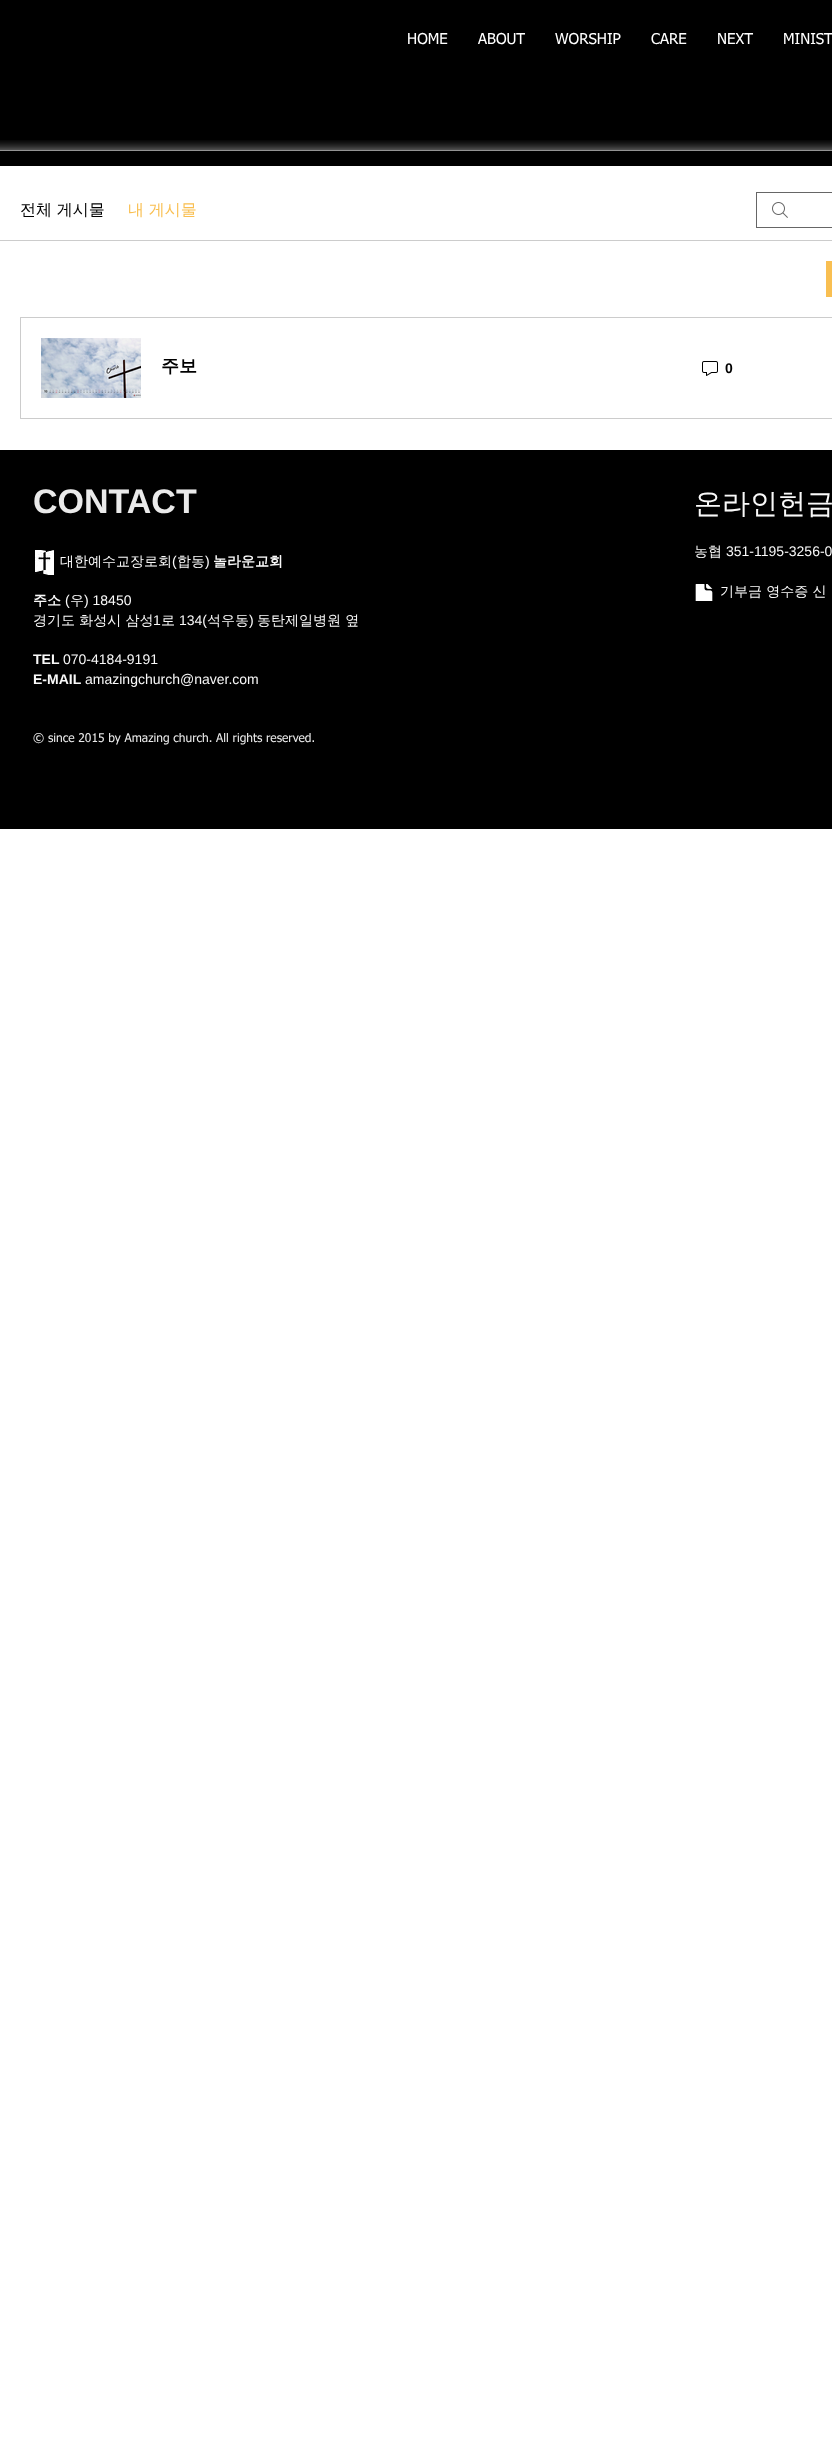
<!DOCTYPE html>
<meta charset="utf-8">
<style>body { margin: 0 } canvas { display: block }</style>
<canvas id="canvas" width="832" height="2457"></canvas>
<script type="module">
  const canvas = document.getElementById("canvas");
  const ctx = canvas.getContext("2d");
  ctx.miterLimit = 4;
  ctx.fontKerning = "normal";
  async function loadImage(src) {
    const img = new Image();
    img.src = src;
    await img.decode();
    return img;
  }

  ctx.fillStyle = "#ffffff";
  ctx.fillRect(0, 0, 832, 2457);
  ctx.fillStyle = "#000000";
  ctx.fillRect(0, 0, 832, 166);
  ctx.font = "15px tahoma";
  ctx.fillStyle = "#ffffff";
  ctx.fillText("HOME", 407, 44);
  ctx.fillText("ABOUT", 478, 44);
  ctx.fillText("WORSHIP", 555, 44);
  ctx.fillText("CARE", 651, 44);
  ctx.fillText("NEXT", 717, 44);
  ctx.fillText("MINIST", 783, 44);
  ctx.drawImage(await loadImage("img1.png"), 0, 140, 832, 11);
  ctx.fillStyle = "#cccccc";
  ctx.fillRect(0, 240, 832, 1);
  ctx.font = "500 16px WenQuanYi Zen Hei";
  ctx.fillStyle = "#000000";
  ctx.fillText("전체 게시물", 20, 215);
  ctx.fillStyle = "#f9bf51";
  ctx.fillText("내 게시물", 128, 215);
  ctx.drawImage(await loadImage("img2.png"), 772, 202, 16, 16);
  ctx.strokeStyle = "#666666";
  ctx.strokeRect(756.5, 192.5, 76, 35);
  ctx.fillRect(826, 261, 6, 36);
  ctx.fillStyle = "#cccccc";
  ctx.beginPath();
  ctx.moveTo(20, 317);
  ctx.lineTo(141, 317);
  ctx.lineTo(141, 318);
  ctx.lineTo(21, 318);
  ctx.closePath();
  ctx.fill();
  ctx.beginPath();
  ctx.moveTo(141, 419);
  ctx.lineTo(20, 419);
  ctx.lineTo(21, 418);
  ctx.lineTo(141, 418);
  ctx.closePath();
  ctx.fill();
  ctx.fillStyle = "rgba(0, 0, 0, 0.2)";
  ctx.beginPath();
  ctx.moveTo(20, 419);
  ctx.lineTo(20, 317);
  ctx.lineTo(21, 318);
  ctx.lineTo(21, 418);
  ctx.closePath();
  ctx.fill();
  ctx.drawImage(await loadImage("img3.png"), 41, 338, 100, 60);
  ctx.font = "bold 18px WenQuanYi Zen Hei";
  ctx.fillStyle = "#000000";
  ctx.fillText("주보", 161, 372);
  ctx.fillStyle = "#cccccc";
  ctx.fillRect(141, 317, 691, 1);
  ctx.fillRect(141, 418, 691, 1);
  ctx.drawImage(await loadImage("img4.png"), 702, 361, 16, 15);
  ctx.font = "bold 14px Liberation Sans";
  ctx.fillStyle = "#000000";
  ctx.fillText("0", 725, 373);
  ctx.fillRect(0, 450, 832, 379);
  ctx.font = "bold 34px Liberation Sans";
  ctx.fillStyle = "#eaeaea";
  ctx.fillText("CONTACT", 33, 513);
  ctx.font = "500 28px WenQuanYi Zen Hei";
  ctx.fillStyle = "#f9f9f9";
  ctx.fillText("온라인헌금", 694, 513);
  ctx.font = "500 14px WenQuanYi Zen Hei";
  ctx.fillText("농협", 694, 556);
  ctx.font = "14px Liberation Sans";
  ctx.fillText("351-1195-3256-0", 726, 556);
  ctx.font = "500 14px WenQuanYi Zen Hei";
  ctx.fillText("기부금 영수증 신", 720, 596);
  ctx.drawImage(await loadImage("img5.png"), 35, 550, 19, 25);
  ctx.fillText("대한예수교장로회", 60, 566);
  ctx.font = "14px Liberation Sans";
  ctx.fillText("(", 172, 566);
  ctx.font = "500 14px WenQuanYi Zen Hei";
  ctx.fillText("합동", 177, 566);
  ctx.font = "14px Liberation Sans";
  ctx.fillText(")", 205, 566);
  ctx.font = "bold 14px WenQuanYi Zen Hei";
  ctx.fillText("놀라운교회", 213, 566);
  ctx.fillText("주소", 33, 605);
  ctx.font = "14px Liberation Sans";
  ctx.fillText("(", 65, 605);
  ctx.font = "500 14px WenQuanYi Zen Hei";
  ctx.fillText("우", 70, 605);
  ctx.font = "14px Liberation Sans";
  ctx.fillText(") 18450", 84, 605);
  ctx.font = "500 14px WenQuanYi Zen Hei";
  ctx.fillText("경기도 화성시 삼성", 33, 625);
  ctx.font = "14px Liberation Sans";
  ctx.fillText("1", 153, 625);
  ctx.font = "500 14px WenQuanYi Zen Hei";
  ctx.fillText("로", 161, 625);
  ctx.font = "14px Liberation Sans";
  ctx.fillText("134(", 179, 625);
  ctx.font = "500 14px WenQuanYi Zen Hei";
  ctx.fillText("석우동", 207, 625);
  ctx.font = "14px Liberation Sans";
  ctx.fillText(")", 249, 625);
  ctx.font = "500 14px WenQuanYi Zen Hei";
  ctx.fillText("동탄제일병원 옆", 257, 625);
  ctx.font = "bold 14px Liberation Sans";
  ctx.fillText("TEL", 33, 664);
  ctx.font = "14px Liberation Sans";
  ctx.fillText("070-4184-9191", 63, 664);
  ctx.font = "bold 14px Liberation Sans";
  ctx.fillText("E-MAIL", 33, 684);
  ctx.font = "14px Liberation Sans";
  ctx.fillText("amazingchurch@naver.com", 85, 684);
  ctx.drawImage(await loadImage("img6.png"), 695, 584, 18, 17);
  ctx.font = "12px tahoma";
  ctx.fillStyle = "#eaeaea";
  ctx.fillText("© since 2015 by Amazing church. All rights reserved.", 33, 742);
</script>
